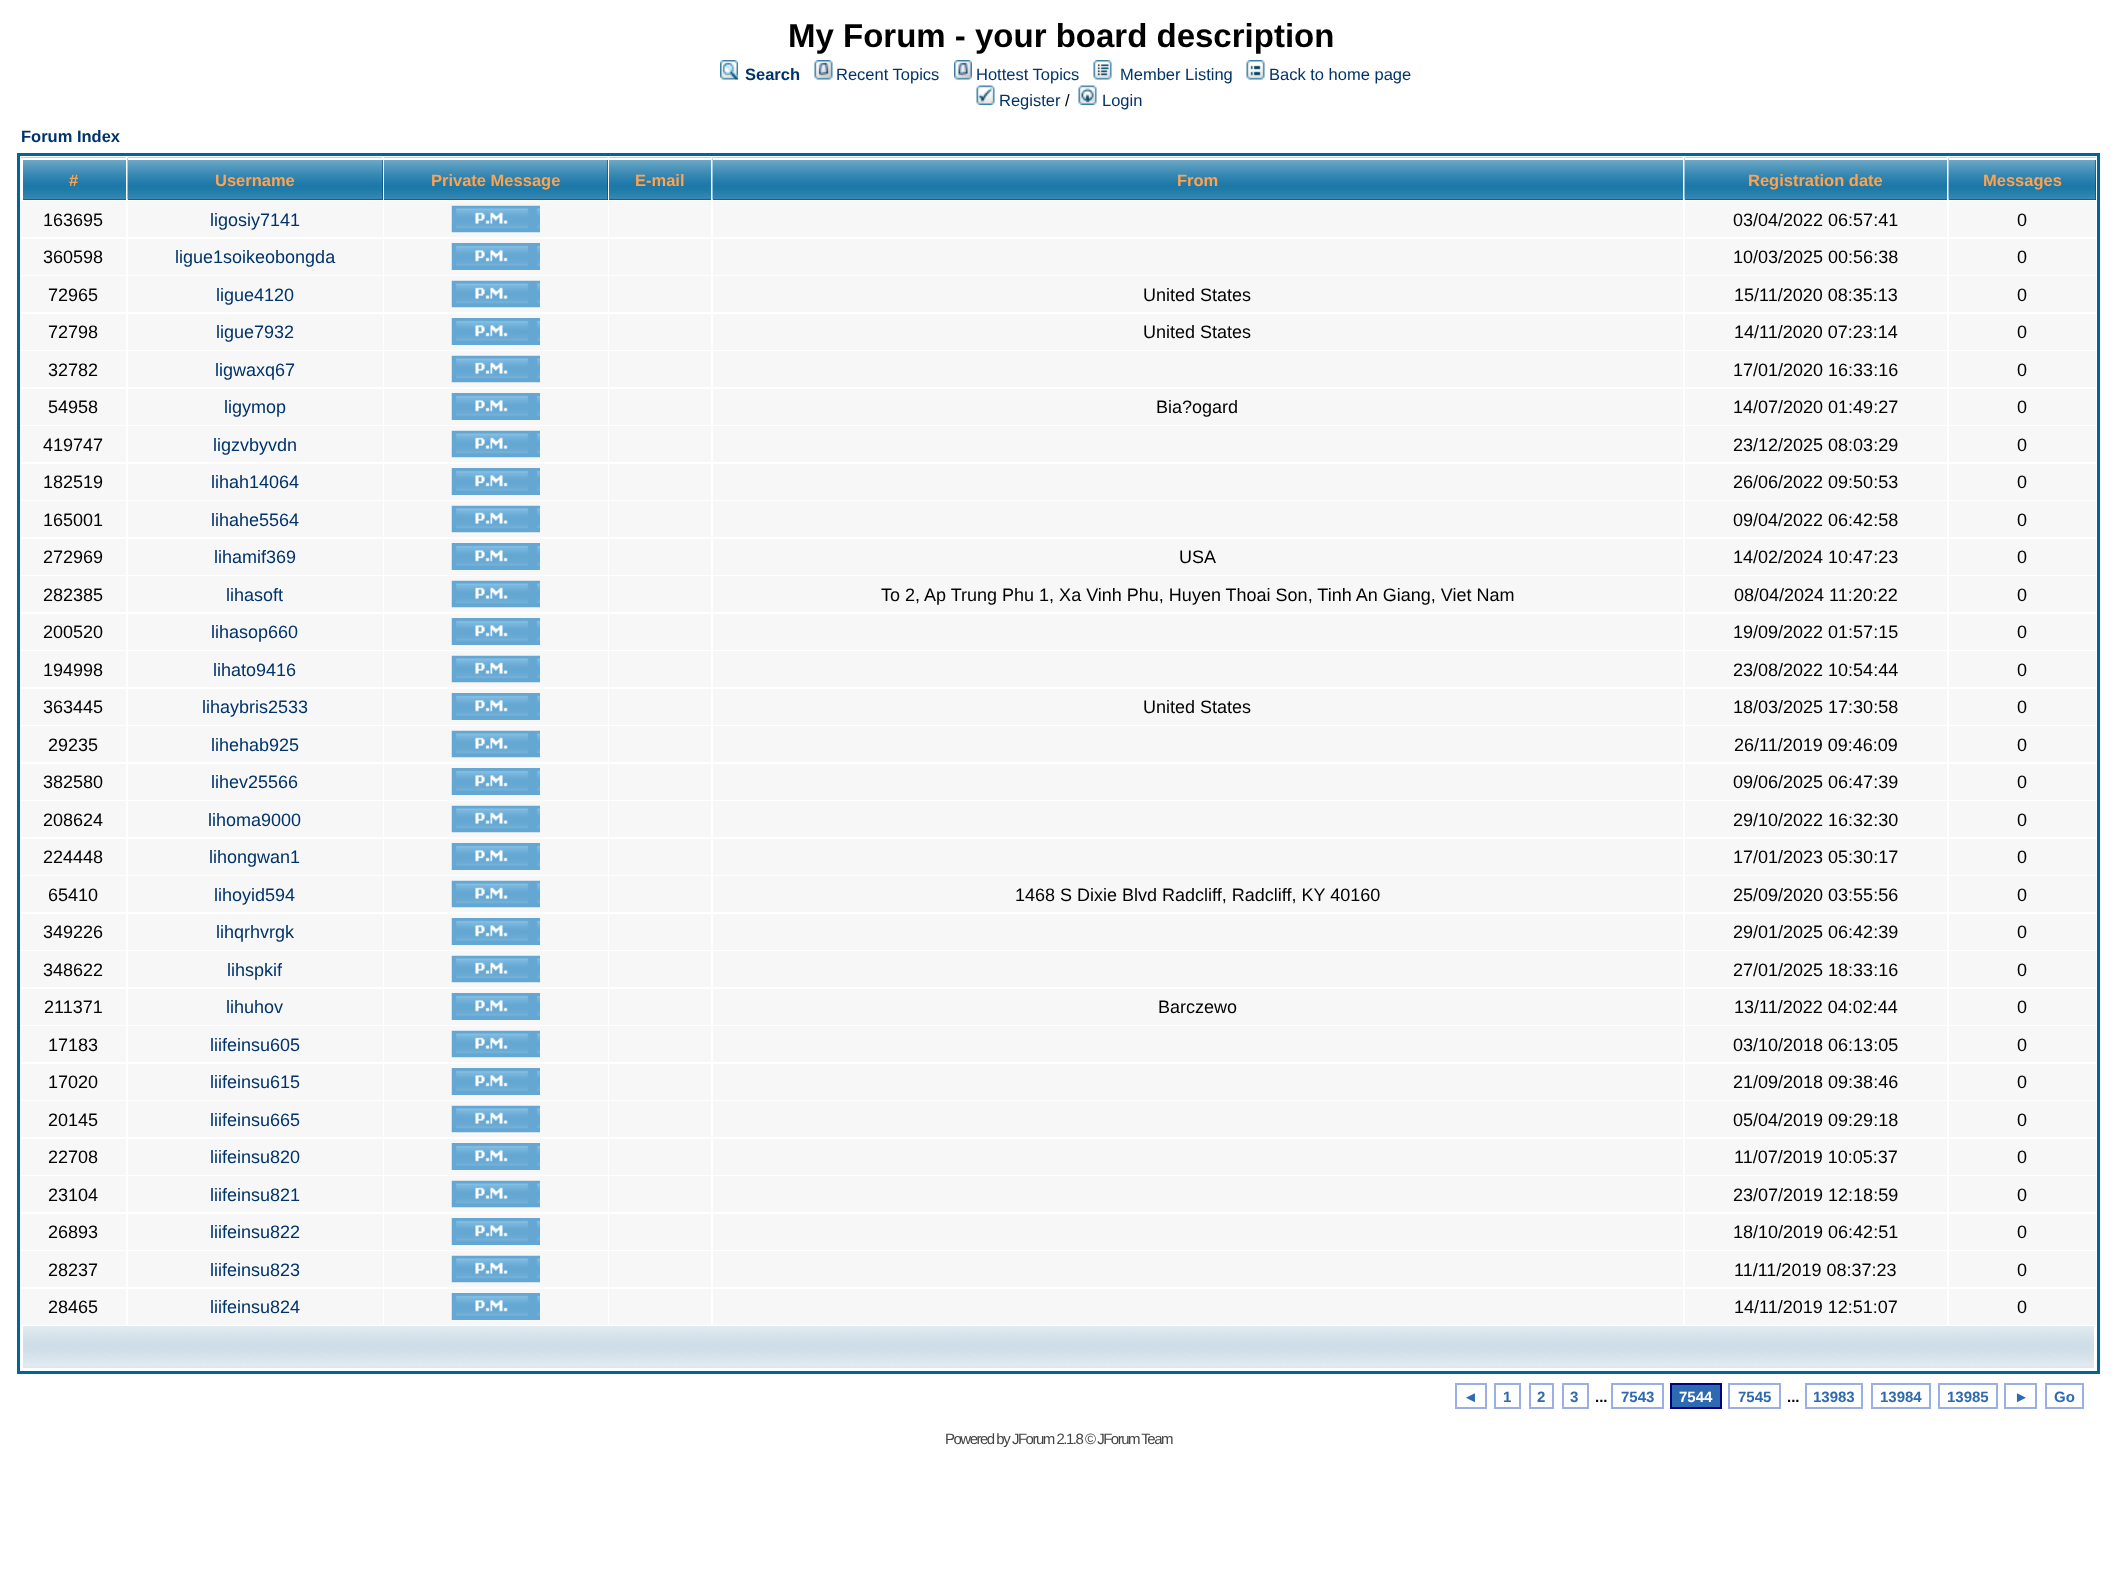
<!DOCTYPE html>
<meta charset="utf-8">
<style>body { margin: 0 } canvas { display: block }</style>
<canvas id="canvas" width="2116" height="1580"></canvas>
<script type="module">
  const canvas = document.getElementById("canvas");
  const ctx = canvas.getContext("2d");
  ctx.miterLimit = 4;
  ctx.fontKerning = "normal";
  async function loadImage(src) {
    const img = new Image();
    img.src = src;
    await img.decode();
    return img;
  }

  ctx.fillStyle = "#ffffff";
  ctx.fillRect(0, 0, 2116, 1580);
  ctx.font = "bold 33px Liberation Sans";
  ctx.fillStyle = "#000000";
  ctx.fillText("My Forum - your board description", 788, 47);
  ctx.drawImage(await loadImage("img1.png"), 720, 60, 18, 20);
  ctx.font = "bold 16.5px Liberation Sans";
  ctx.fillStyle = "#01336b";
  ctx.fillText("Search", 745, 80);
  ctx.drawImage(await loadImage("img2.png"), 814, 60, 19, 20);
  ctx.font = "16.5px Liberation Sans";
  ctx.fillText("Recent Topics", 836, 80);
  ctx.drawImage(await loadImage("img3.png"), 954, 60, 18, 20);
  ctx.fillText("Hottest Topics", 976, 80);
  ctx.drawImage(await loadImage("img4.png"), 1093, 60, 19, 20);
  ctx.fillText("Member Listing", 1120, 80);
  ctx.drawImage(await loadImage("img5.png"), 1246, 60, 19, 20);
  ctx.fillText("Back to home page", 1269, 80);
  ctx.drawImage(await loadImage("img6.png"), 976, 85, 19, 20);
  ctx.fillText("Register", 999, 106);
  ctx.fillStyle = "#000000";
  ctx.fillText("/", 1065, 106);
  ctx.drawImage(await loadImage("img7.png"), 1078, 85, 19, 20);
  ctx.fillStyle = "#01336b";
  ctx.fillText("Login", 1102, 106);
  ctx.font = "bold 16.5px Liberation Sans";
  ctx.fillText("Forum Index", 21, 142);
  ctx.strokeStyle = "#006699";
  ctx.lineWidth = 3;
  ctx.strokeRect(18.5, 154.5, 2080, 1218);
  ctx.fillRect(23, 199, 103, 1);
  ctx.drawImage(await loadImage("img8.png"), 21, 157, 105, 43);
  ctx.fillStyle = "#ffffff";
  ctx.fillRect(21, 158, 105, 2);
  ctx.fillRect(21, 158, 2, 42);
  ctx.fillStyle = "#ffa34f";
  ctx.fillText("#", 69, 186);
  ctx.fillStyle = "#01336b";
  ctx.fillRect(128, 160, 255, 40);
  ctx.drawImage(await loadImage("img9.png"), 127, 157, 256, 43);
  ctx.fillStyle = "#ffffff";
  ctx.fillRect(128, 158, 255, 2);
  ctx.fillStyle = "#ffa34f";
  ctx.fillText("Username", 215, 186);
  ctx.fillStyle = "#01336b";
  ctx.fillRect(384, 160, 224, 40);
  ctx.drawImage(await loadImage("img10.png"), 384, 157, 224, 43);
  ctx.fillStyle = "#ffffff";
  ctx.fillRect(384, 158, 224, 2);
  ctx.fillStyle = "#ffa34f";
  ctx.fillText("Private Message", 431, 186);
  ctx.fillStyle = "#01336b";
  ctx.fillRect(609, 199, 102, 1);
  ctx.drawImage(await loadImage("img11.png"), 609, 157, 102, 43);
  ctx.fillStyle = "#ffffff";
  ctx.fillRect(609, 158, 102, 2);
  ctx.fillStyle = "#ffa34f";
  ctx.fillText("E-mail", 635, 186);
  ctx.fillStyle = "#01336b";
  ctx.fillRect(713, 199, 970, 1);
  ctx.drawImage(await loadImage("img12.png"), 712, 157, 971, 43);
  ctx.fillStyle = "#ffffff";
  ctx.fillRect(713, 158, 970, 2);
  ctx.fillStyle = "#ffa34f";
  ctx.fillText("From", 1177, 186);
  ctx.fillStyle = "#01336b";
  ctx.fillRect(1685, 199, 262, 1);
  ctx.drawImage(await loadImage("img13.png"), 1684, 157, 263, 43);
  ctx.fillStyle = "#ffffff";
  ctx.fillRect(1685, 158, 262, 2);
  ctx.fillStyle = "#ffa34f";
  ctx.fillText("Registration date", 1748, 186);
  ctx.fillStyle = "#01336b";
  ctx.fillRect(1949, 160, 147, 40);
  ctx.drawImage(await loadImage("img14.png"), 1948, 157, 148, 43);
  ctx.fillStyle = "#ffffff";
  ctx.fillRect(1949, 158, 147, 2);
  ctx.fillStyle = "#ffa34f";
  ctx.fillText("Messages", 1983, 186);
  ctx.fillStyle = "#f7f7f8";
  ctx.fillRect(21, 201, 105, 36);
  ctx.font = "18px Liberation Sans";
  ctx.fillStyle = "#000000";
  ctx.fillText("163695", 43, 226);
  ctx.fillStyle = "#f7f7f8";
  ctx.fillRect(128, 201, 255, 36);
  ctx.fillStyle = "#01336b";
  ctx.fillText("ligosiy7141", 210, 226);
  ctx.fillStyle = "#f7f7f8";
  ctx.fillRect(384, 201, 224, 36);
  ctx.drawImage(await loadImage("img15.png"), 451, 205, 89, 28);
  ctx.fillRect(609, 201, 102, 36);
  ctx.fillRect(713, 201, 970, 36);
  ctx.fillRect(1685, 201, 262, 36);
  ctx.fillStyle = "#000000";
  ctx.fillText("03/04/2022 06:57:41", 1733, 226);
  ctx.fillStyle = "#f7f7f8";
  ctx.fillRect(1949, 201, 147, 36);
  ctx.fillStyle = "#000000";
  ctx.fillText("0", 2017, 226);
  ctx.fillStyle = "#f7f7f8";
  ctx.fillRect(21, 239, 105, 36);
  ctx.fillStyle = "#000000";
  ctx.fillText("360598", 43, 263);
  ctx.fillStyle = "#f7f7f8";
  ctx.fillRect(128, 239, 255, 36);
  ctx.fillStyle = "#01336b";
  ctx.fillText("ligue1soikeobongda", 175, 263);
  ctx.fillStyle = "#f7f7f8";
  ctx.fillRect(384, 239, 224, 36);
  ctx.drawImage(await loadImage("img16.png"), 451, 243, 89, 27);
  ctx.fillRect(609, 239, 102, 36);
  ctx.fillRect(713, 239, 970, 36);
  ctx.fillRect(1685, 239, 262, 36);
  ctx.fillStyle = "#000000";
  ctx.fillText("10/03/2025 00:56:38", 1733, 263);
  ctx.fillStyle = "#f7f7f8";
  ctx.fillRect(1949, 239, 147, 36);
  ctx.fillStyle = "#000000";
  ctx.fillText("0", 2017, 263);
  ctx.fillStyle = "#f7f7f8";
  ctx.fillRect(21, 276, 105, 36);
  ctx.fillStyle = "#000000";
  ctx.fillText("72965", 48, 301);
  ctx.fillStyle = "#f7f7f8";
  ctx.fillRect(128, 276, 255, 36);
  ctx.fillStyle = "#01336b";
  ctx.fillText("ligue4120", 216, 301);
  ctx.fillStyle = "#f7f7f8";
  ctx.fillRect(384, 276, 224, 36);
  ctx.drawImage(await loadImage("img15.png"), 451, 280, 89, 28);
  ctx.fillRect(609, 276, 102, 36);
  ctx.fillRect(713, 276, 970, 36);
  ctx.fillStyle = "#000000";
  ctx.fillText("United States", 1143, 301);
  ctx.fillStyle = "#f7f7f8";
  ctx.fillRect(1685, 276, 262, 36);
  ctx.fillStyle = "#000000";
  ctx.fillText("15/11/2020 08:35:13", 1734, 301);
  ctx.fillStyle = "#f7f7f8";
  ctx.fillRect(1949, 276, 147, 36);
  ctx.fillStyle = "#000000";
  ctx.fillText("0", 2017, 301);
  ctx.fillStyle = "#f7f7f8";
  ctx.fillRect(21, 314, 105, 36);
  ctx.fillStyle = "#000000";
  ctx.fillText("72798", 48, 338);
  ctx.fillStyle = "#f7f7f8";
  ctx.fillRect(128, 314, 255, 36);
  ctx.fillStyle = "#01336b";
  ctx.fillText("ligue7932", 216, 338);
  ctx.fillStyle = "#f7f7f8";
  ctx.fillRect(384, 314, 224, 36);
  ctx.drawImage(await loadImage("img16.png"), 451, 318, 89, 27);
  ctx.fillRect(609, 314, 102, 36);
  ctx.fillRect(713, 314, 970, 36);
  ctx.fillStyle = "#000000";
  ctx.fillText("United States", 1143, 338);
  ctx.fillStyle = "#f7f7f8";
  ctx.fillRect(1685, 314, 262, 36);
  ctx.fillStyle = "#000000";
  ctx.fillText("14/11/2020 07:23:14", 1734, 338);
  ctx.fillStyle = "#f7f7f8";
  ctx.fillRect(1949, 314, 147, 36);
  ctx.fillStyle = "#000000";
  ctx.fillText("0", 2017, 338);
  ctx.fillStyle = "#f7f7f8";
  ctx.fillRect(21, 351, 105, 36);
  ctx.fillStyle = "#000000";
  ctx.fillText("32782", 48, 376);
  ctx.fillStyle = "#f7f7f8";
  ctx.fillRect(128, 351, 255, 36);
  ctx.fillStyle = "#01336b";
  ctx.fillText("ligwaxq67", 215, 376);
  ctx.fillStyle = "#f7f7f8";
  ctx.fillRect(384, 351, 224, 36);
  ctx.drawImage(await loadImage("img15.png"), 451, 355, 89, 28);
  ctx.fillRect(609, 351, 102, 36);
  ctx.fillRect(713, 351, 970, 36);
  ctx.fillRect(1685, 351, 262, 36);
  ctx.fillStyle = "#000000";
  ctx.fillText("17/01/2020 16:33:16", 1733, 376);
  ctx.fillStyle = "#f7f7f8";
  ctx.fillRect(1949, 351, 147, 36);
  ctx.fillStyle = "#000000";
  ctx.fillText("0", 2017, 376);
  ctx.fillStyle = "#f7f7f8";
  ctx.fillRect(21, 389, 105, 36);
  ctx.fillStyle = "#000000";
  ctx.fillText("54958", 48, 413);
  ctx.fillStyle = "#f7f7f8";
  ctx.fillRect(128, 389, 255, 36);
  ctx.fillStyle = "#01336b";
  ctx.fillText("ligymop", 224, 413);
  ctx.fillStyle = "#f7f7f8";
  ctx.fillRect(384, 389, 224, 36);
  ctx.drawImage(await loadImage("img16.png"), 451, 393, 89, 27);
  ctx.fillRect(609, 389, 102, 36);
  ctx.fillRect(713, 389, 970, 36);
  ctx.fillStyle = "#000000";
  ctx.fillText("Bia?ogard", 1156, 413);
  ctx.fillStyle = "#f7f7f8";
  ctx.fillRect(1685, 389, 262, 36);
  ctx.fillStyle = "#000000";
  ctx.fillText("14/07/2020 01:49:27", 1733, 413);
  ctx.fillStyle = "#f7f7f8";
  ctx.fillRect(1949, 389, 147, 36);
  ctx.fillStyle = "#000000";
  ctx.fillText("0", 2017, 413);
  ctx.fillStyle = "#f7f7f8";
  ctx.fillRect(21, 426, 105, 36);
  ctx.fillStyle = "#000000";
  ctx.fillText("419747", 43, 451);
  ctx.fillStyle = "#f7f7f8";
  ctx.fillRect(128, 426, 255, 36);
  ctx.fillStyle = "#01336b";
  ctx.fillText("ligzvbyvdn", 213, 451);
  ctx.fillStyle = "#f7f7f8";
  ctx.fillRect(384, 426, 224, 36);
  ctx.drawImage(await loadImage("img15.png"), 451, 430, 89, 28);
  ctx.fillRect(609, 426, 102, 36);
  ctx.fillRect(713, 426, 970, 36);
  ctx.fillRect(1685, 426, 262, 36);
  ctx.fillStyle = "#000000";
  ctx.fillText("23/12/2025 08:03:29", 1733, 451);
  ctx.fillStyle = "#f7f7f8";
  ctx.fillRect(1949, 426, 147, 36);
  ctx.fillStyle = "#000000";
  ctx.fillText("0", 2017, 451);
  ctx.fillStyle = "#f7f7f8";
  ctx.fillRect(21, 464, 105, 36);
  ctx.fillStyle = "#000000";
  ctx.fillText("182519", 43, 488);
  ctx.fillStyle = "#f7f7f8";
  ctx.fillRect(128, 464, 255, 36);
  ctx.fillStyle = "#01336b";
  ctx.fillText("lihah14064", 211, 488);
  ctx.fillStyle = "#f7f7f8";
  ctx.fillRect(384, 464, 224, 36);
  ctx.drawImage(await loadImage("img16.png"), 451, 468, 89, 27);
  ctx.fillRect(609, 464, 102, 36);
  ctx.fillRect(713, 464, 970, 36);
  ctx.fillRect(1685, 464, 262, 36);
  ctx.fillStyle = "#000000";
  ctx.fillText("26/06/2022 09:50:53", 1733, 488);
  ctx.fillStyle = "#f7f7f8";
  ctx.fillRect(1949, 464, 147, 36);
  ctx.fillStyle = "#000000";
  ctx.fillText("0", 2017, 488);
  ctx.fillStyle = "#f7f7f8";
  ctx.fillRect(21, 501, 105, 36);
  ctx.fillStyle = "#000000";
  ctx.fillText("165001", 43, 526);
  ctx.fillStyle = "#f7f7f8";
  ctx.fillRect(128, 501, 255, 36);
  ctx.fillStyle = "#01336b";
  ctx.fillText("lihahe5564", 211, 526);
  ctx.fillStyle = "#f7f7f8";
  ctx.fillRect(384, 501, 224, 36);
  ctx.drawImage(await loadImage("img15.png"), 451, 505, 89, 28);
  ctx.fillRect(609, 501, 102, 36);
  ctx.fillRect(713, 501, 970, 36);
  ctx.fillRect(1685, 501, 262, 36);
  ctx.fillStyle = "#000000";
  ctx.fillText("09/04/2022 06:42:58", 1733, 526);
  ctx.fillStyle = "#f7f7f8";
  ctx.fillRect(1949, 501, 147, 36);
  ctx.fillStyle = "#000000";
  ctx.fillText("0", 2017, 526);
  ctx.fillStyle = "#f7f7f8";
  ctx.fillRect(21, 539, 105, 36);
  ctx.fillStyle = "#000000";
  ctx.fillText("272969", 43, 563);
  ctx.fillStyle = "#f7f7f8";
  ctx.fillRect(128, 539, 255, 36);
  ctx.fillStyle = "#01336b";
  ctx.fillText("lihamif369", 214, 563);
  ctx.fillStyle = "#f7f7f8";
  ctx.fillRect(384, 539, 224, 36);
  ctx.drawImage(await loadImage("img16.png"), 451, 543, 89, 27);
  ctx.fillRect(609, 539, 102, 36);
  ctx.fillRect(713, 539, 970, 36);
  ctx.fillStyle = "#000000";
  ctx.fillText("USA", 1179, 563);
  ctx.fillStyle = "#f7f7f8";
  ctx.fillRect(1685, 539, 262, 36);
  ctx.fillStyle = "#000000";
  ctx.fillText("14/02/2024 10:47:23", 1733, 563);
  ctx.fillStyle = "#f7f7f8";
  ctx.fillRect(1949, 539, 147, 36);
  ctx.fillStyle = "#000000";
  ctx.fillText("0", 2017, 563);
  ctx.fillStyle = "#f7f7f8";
  ctx.fillRect(21, 576, 105, 36);
  ctx.fillStyle = "#000000";
  ctx.fillText("282385", 43, 601);
  ctx.fillStyle = "#f7f7f8";
  ctx.fillRect(128, 576, 255, 36);
  ctx.fillStyle = "#01336b";
  ctx.fillText("lihasoft", 226, 601);
  ctx.fillStyle = "#f7f7f8";
  ctx.fillRect(384, 576, 224, 36);
  ctx.drawImage(await loadImage("img15.png"), 451, 580, 89, 28);
  ctx.fillRect(609, 576, 102, 36);
  ctx.fillRect(713, 576, 970, 36);
  ctx.fillStyle = "#000000";
  ctx.fillText("To 2, Ap Trung Phu 1, Xa Vinh Phu, Huyen Thoai Son, Tinh An Giang, Viet Nam", 881, 601);
  ctx.fillStyle = "#f7f7f8";
  ctx.fillRect(1685, 576, 262, 36);
  ctx.fillStyle = "#000000";
  ctx.fillText("08/04/2024 11:20:22", 1734, 601);
  ctx.fillStyle = "#f7f7f8";
  ctx.fillRect(1949, 576, 147, 36);
  ctx.fillStyle = "#000000";
  ctx.fillText("0", 2017, 601);
  ctx.fillStyle = "#f7f7f8";
  ctx.fillRect(21, 614, 105, 36);
  ctx.fillStyle = "#000000";
  ctx.fillText("200520", 43, 638);
  ctx.fillStyle = "#f7f7f8";
  ctx.fillRect(128, 614, 255, 36);
  ctx.fillStyle = "#01336b";
  ctx.fillText("lihasop660", 211, 638);
  ctx.fillStyle = "#f7f7f8";
  ctx.fillRect(384, 614, 224, 36);
  ctx.drawImage(await loadImage("img16.png"), 451, 618, 89, 27);
  ctx.fillRect(609, 614, 102, 36);
  ctx.fillRect(713, 614, 970, 36);
  ctx.fillRect(1685, 614, 262, 36);
  ctx.fillStyle = "#000000";
  ctx.fillText("19/09/2022 01:57:15", 1733, 638);
  ctx.fillStyle = "#f7f7f8";
  ctx.fillRect(1949, 614, 147, 36);
  ctx.fillStyle = "#000000";
  ctx.fillText("0", 2017, 638);
  ctx.fillStyle = "#f7f7f8";
  ctx.fillRect(21, 651, 105, 36);
  ctx.fillStyle = "#000000";
  ctx.fillText("194998", 43, 676);
  ctx.fillStyle = "#f7f7f8";
  ctx.fillRect(128, 651, 255, 36);
  ctx.fillStyle = "#01336b";
  ctx.fillText("lihato9416", 213, 676);
  ctx.fillStyle = "#f7f7f8";
  ctx.fillRect(384, 651, 224, 36);
  ctx.drawImage(await loadImage("img15.png"), 451, 655, 89, 28);
  ctx.fillRect(609, 651, 102, 36);
  ctx.fillRect(713, 651, 970, 36);
  ctx.fillRect(1685, 651, 262, 36);
  ctx.fillStyle = "#000000";
  ctx.fillText("23/08/2022 10:54:44", 1733, 676);
  ctx.fillStyle = "#f7f7f8";
  ctx.fillRect(1949, 651, 147, 36);
  ctx.fillStyle = "#000000";
  ctx.fillText("0", 2017, 676);
  ctx.fillStyle = "#f7f7f8";
  ctx.fillRect(21, 689, 105, 36);
  ctx.fillStyle = "#000000";
  ctx.fillText("363445", 43, 713);
  ctx.fillStyle = "#f7f7f8";
  ctx.fillRect(128, 689, 255, 36);
  ctx.fillStyle = "#01336b";
  ctx.fillText("lihaybris2533", 202, 713);
  ctx.fillStyle = "#f7f7f8";
  ctx.fillRect(384, 689, 224, 36);
  ctx.drawImage(await loadImage("img16.png"), 451, 693, 89, 27);
  ctx.fillRect(609, 689, 102, 36);
  ctx.fillRect(713, 689, 970, 36);
  ctx.fillStyle = "#000000";
  ctx.fillText("United States", 1143, 713);
  ctx.fillStyle = "#f7f7f8";
  ctx.fillRect(1685, 689, 262, 36);
  ctx.fillStyle = "#000000";
  ctx.fillText("18/03/2025 17:30:58", 1733, 713);
  ctx.fillStyle = "#f7f7f8";
  ctx.fillRect(1949, 689, 147, 36);
  ctx.fillStyle = "#000000";
  ctx.fillText("0", 2017, 713);
  ctx.fillStyle = "#f7f7f8";
  ctx.fillRect(21, 726, 105, 36);
  ctx.fillStyle = "#000000";
  ctx.fillText("29235", 48, 751);
  ctx.fillStyle = "#f7f7f8";
  ctx.fillRect(128, 726, 255, 36);
  ctx.fillStyle = "#01336b";
  ctx.fillText("lihehab925", 211, 751);
  ctx.fillStyle = "#f7f7f8";
  ctx.fillRect(384, 726, 224, 36);
  ctx.drawImage(await loadImage("img15.png"), 451, 730, 89, 28);
  ctx.fillRect(609, 726, 102, 36);
  ctx.fillRect(713, 726, 970, 36);
  ctx.fillRect(1685, 726, 262, 36);
  ctx.fillStyle = "#000000";
  ctx.fillText("26/11/2019 09:46:09", 1734, 751);
  ctx.fillStyle = "#f7f7f8";
  ctx.fillRect(1949, 726, 147, 36);
  ctx.fillStyle = "#000000";
  ctx.fillText("0", 2017, 751);
  ctx.fillStyle = "#f7f7f8";
  ctx.fillRect(21, 764, 105, 36);
  ctx.fillStyle = "#000000";
  ctx.fillText("382580", 43, 788);
  ctx.fillStyle = "#f7f7f8";
  ctx.fillRect(128, 764, 255, 36);
  ctx.fillStyle = "#01336b";
  ctx.fillText("lihev25566", 211, 788);
  ctx.fillStyle = "#f7f7f8";
  ctx.fillRect(384, 764, 224, 36);
  ctx.drawImage(await loadImage("img16.png"), 451, 768, 89, 27);
  ctx.fillRect(609, 764, 102, 36);
  ctx.fillRect(713, 764, 970, 36);
  ctx.fillRect(1685, 764, 262, 36);
  ctx.fillStyle = "#000000";
  ctx.fillText("09/06/2025 06:47:39", 1733, 788);
  ctx.fillStyle = "#f7f7f8";
  ctx.fillRect(1949, 764, 147, 36);
  ctx.fillStyle = "#000000";
  ctx.fillText("0", 2017, 788);
  ctx.fillStyle = "#f7f7f8";
  ctx.fillRect(21, 801, 105, 36);
  ctx.fillStyle = "#000000";
  ctx.fillText("208624", 43, 826);
  ctx.fillStyle = "#f7f7f8";
  ctx.fillRect(128, 801, 255, 36);
  ctx.fillStyle = "#01336b";
  ctx.fillText("lihoma9000", 208, 826);
  ctx.fillStyle = "#f7f7f8";
  ctx.fillRect(384, 801, 224, 36);
  ctx.drawImage(await loadImage("img15.png"), 451, 805, 89, 28);
  ctx.fillRect(609, 801, 102, 36);
  ctx.fillRect(713, 801, 970, 36);
  ctx.fillRect(1685, 801, 262, 36);
  ctx.fillStyle = "#000000";
  ctx.fillText("29/10/2022 16:32:30", 1733, 826);
  ctx.fillStyle = "#f7f7f8";
  ctx.fillRect(1949, 801, 147, 36);
  ctx.fillStyle = "#000000";
  ctx.fillText("0", 2017, 826);
  ctx.fillStyle = "#f7f7f8";
  ctx.fillRect(21, 839, 105, 36);
  ctx.fillStyle = "#000000";
  ctx.fillText("224448", 43, 863);
  ctx.fillStyle = "#f7f7f8";
  ctx.fillRect(128, 839, 255, 36);
  ctx.fillStyle = "#01336b";
  ctx.fillText("lihongwan1", 209, 863);
  ctx.fillStyle = "#f7f7f8";
  ctx.fillRect(384, 839, 224, 36);
  ctx.drawImage(await loadImage("img16.png"), 451, 843, 89, 27);
  ctx.fillRect(609, 839, 102, 36);
  ctx.fillRect(713, 839, 970, 36);
  ctx.fillRect(1685, 839, 262, 36);
  ctx.fillStyle = "#000000";
  ctx.fillText("17/01/2023 05:30:17", 1733, 863);
  ctx.fillStyle = "#f7f7f8";
  ctx.fillRect(1949, 839, 147, 36);
  ctx.fillStyle = "#000000";
  ctx.fillText("0", 2017, 863);
  ctx.fillStyle = "#f7f7f8";
  ctx.fillRect(21, 876, 105, 36);
  ctx.fillStyle = "#000000";
  ctx.fillText("65410", 48, 901);
  ctx.fillStyle = "#f7f7f8";
  ctx.fillRect(128, 876, 255, 36);
  ctx.fillStyle = "#01336b";
  ctx.fillText("lihoyid594", 214, 901);
  ctx.fillStyle = "#f7f7f8";
  ctx.fillRect(384, 876, 224, 36);
  ctx.drawImage(await loadImage("img15.png"), 451, 880, 89, 28);
  ctx.fillRect(609, 876, 102, 36);
  ctx.fillRect(713, 876, 970, 36);
  ctx.fillStyle = "#000000";
  ctx.fillText("1468 S Dixie Blvd Radcliff, Radcliff, KY 40160", 1015, 901);
  ctx.fillStyle = "#f7f7f8";
  ctx.fillRect(1685, 876, 262, 36);
  ctx.fillStyle = "#000000";
  ctx.fillText("25/09/2020 03:55:56", 1733, 901);
  ctx.fillStyle = "#f7f7f8";
  ctx.fillRect(1949, 876, 147, 36);
  ctx.fillStyle = "#000000";
  ctx.fillText("0", 2017, 901);
  ctx.fillStyle = "#f7f7f8";
  ctx.fillRect(21, 914, 105, 36);
  ctx.fillStyle = "#000000";
  ctx.fillText("349226", 43, 938);
  ctx.fillStyle = "#f7f7f8";
  ctx.fillRect(128, 914, 255, 36);
  ctx.fillStyle = "#01336b";
  ctx.fillText("lihqrhvrgk", 216, 938);
  ctx.fillStyle = "#f7f7f8";
  ctx.fillRect(384, 914, 224, 36);
  ctx.drawImage(await loadImage("img16.png"), 451, 918, 89, 27);
  ctx.fillRect(609, 914, 102, 36);
  ctx.fillRect(713, 914, 970, 36);
  ctx.fillRect(1685, 914, 262, 36);
  ctx.fillStyle = "#000000";
  ctx.fillText("29/01/2025 06:42:39", 1733, 938);
  ctx.fillStyle = "#f7f7f8";
  ctx.fillRect(1949, 914, 147, 36);
  ctx.fillStyle = "#000000";
  ctx.fillText("0", 2017, 938);
  ctx.fillStyle = "#f7f7f8";
  ctx.fillRect(21, 951, 105, 36);
  ctx.fillStyle = "#000000";
  ctx.fillText("348622", 43, 976);
  ctx.fillStyle = "#f7f7f8";
  ctx.fillRect(128, 951, 255, 36);
  ctx.fillStyle = "#01336b";
  ctx.fillText("lihspkif", 227, 976);
  ctx.fillStyle = "#f7f7f8";
  ctx.fillRect(384, 951, 224, 36);
  ctx.drawImage(await loadImage("img15.png"), 451, 955, 89, 28);
  ctx.fillRect(609, 951, 102, 36);
  ctx.fillRect(713, 951, 970, 36);
  ctx.fillRect(1685, 951, 262, 36);
  ctx.fillStyle = "#000000";
  ctx.fillText("27/01/2025 18:33:16", 1733, 976);
  ctx.fillStyle = "#f7f7f8";
  ctx.fillRect(1949, 951, 147, 36);
  ctx.fillStyle = "#000000";
  ctx.fillText("0", 2017, 976);
  ctx.fillStyle = "#f7f7f8";
  ctx.fillRect(21, 989, 105, 36);
  ctx.fillStyle = "#000000";
  ctx.fillText("211371", 44, 1013);
  ctx.fillStyle = "#f7f7f8";
  ctx.fillRect(128, 989, 255, 36);
  ctx.fillStyle = "#01336b";
  ctx.fillText("lihuhov", 226, 1013);
  ctx.fillStyle = "#f7f7f8";
  ctx.fillRect(384, 989, 224, 36);
  ctx.drawImage(await loadImage("img16.png"), 451, 993, 89, 27);
  ctx.fillRect(609, 989, 102, 36);
  ctx.fillRect(713, 989, 970, 36);
  ctx.fillStyle = "#000000";
  ctx.fillText("Barczewo", 1158, 1013);
  ctx.fillStyle = "#f7f7f8";
  ctx.fillRect(1685, 989, 262, 36);
  ctx.fillStyle = "#000000";
  ctx.fillText("13/11/2022 04:02:44", 1734, 1013);
  ctx.fillStyle = "#f7f7f8";
  ctx.fillRect(1949, 989, 147, 36);
  ctx.fillStyle = "#000000";
  ctx.fillText("0", 2017, 1013);
  ctx.fillStyle = "#f7f7f8";
  ctx.fillRect(21, 1026, 105, 36);
  ctx.fillStyle = "#000000";
  ctx.fillText("17183", 48, 1051);
  ctx.fillStyle = "#f7f7f8";
  ctx.fillRect(128, 1026, 255, 36);
  ctx.fillStyle = "#01336b";
  ctx.fillText("liifeinsu605", 210, 1051);
  ctx.fillStyle = "#f7f7f8";
  ctx.fillRect(384, 1026, 224, 36);
  ctx.drawImage(await loadImage("img15.png"), 451, 1030, 89, 28);
  ctx.fillRect(609, 1026, 102, 36);
  ctx.fillRect(713, 1026, 970, 36);
  ctx.fillRect(1685, 1026, 262, 36);
  ctx.fillStyle = "#000000";
  ctx.fillText("03/10/2018 06:13:05", 1733, 1051);
  ctx.fillStyle = "#f7f7f8";
  ctx.fillRect(1949, 1026, 147, 36);
  ctx.fillStyle = "#000000";
  ctx.fillText("0", 2017, 1051);
  ctx.fillStyle = "#f7f7f8";
  ctx.fillRect(21, 1064, 105, 36);
  ctx.fillStyle = "#000000";
  ctx.fillText("17020", 48, 1088);
  ctx.fillStyle = "#f7f7f8";
  ctx.fillRect(128, 1064, 255, 36);
  ctx.fillStyle = "#01336b";
  ctx.fillText("liifeinsu615", 210, 1088);
  ctx.fillStyle = "#f7f7f8";
  ctx.fillRect(384, 1064, 224, 36);
  ctx.drawImage(await loadImage("img16.png"), 451, 1068, 89, 27);
  ctx.fillRect(609, 1064, 102, 36);
  ctx.fillRect(713, 1064, 970, 36);
  ctx.fillRect(1685, 1064, 262, 36);
  ctx.fillStyle = "#000000";
  ctx.fillText("21/09/2018 09:38:46", 1733, 1088);
  ctx.fillStyle = "#f7f7f8";
  ctx.fillRect(1949, 1064, 147, 36);
  ctx.fillStyle = "#000000";
  ctx.fillText("0", 2017, 1088);
  ctx.fillStyle = "#f7f7f8";
  ctx.fillRect(21, 1101, 105, 36);
  ctx.fillStyle = "#000000";
  ctx.fillText("20145", 48, 1126);
  ctx.fillStyle = "#f7f7f8";
  ctx.fillRect(128, 1101, 255, 36);
  ctx.fillStyle = "#01336b";
  ctx.fillText("liifeinsu665", 210, 1126);
  ctx.fillStyle = "#f7f7f8";
  ctx.fillRect(384, 1101, 224, 36);
  ctx.drawImage(await loadImage("img15.png"), 451, 1105, 89, 28);
  ctx.fillRect(609, 1101, 102, 36);
  ctx.fillRect(713, 1101, 970, 36);
  ctx.fillRect(1685, 1101, 262, 36);
  ctx.fillStyle = "#000000";
  ctx.fillText("05/04/2019 09:29:18", 1733, 1126);
  ctx.fillStyle = "#f7f7f8";
  ctx.fillRect(1949, 1101, 147, 36);
  ctx.fillStyle = "#000000";
  ctx.fillText("0", 2017, 1126);
  ctx.fillStyle = "#f7f7f8";
  ctx.fillRect(21, 1139, 105, 36);
  ctx.fillStyle = "#000000";
  ctx.fillText("22708", 48, 1163);
  ctx.fillStyle = "#f7f7f8";
  ctx.fillRect(128, 1139, 255, 36);
  ctx.fillStyle = "#01336b";
  ctx.fillText("liifeinsu820", 210, 1163);
  ctx.fillStyle = "#f7f7f8";
  ctx.fillRect(384, 1139, 224, 36);
  ctx.drawImage(await loadImage("img16.png"), 451, 1143, 89, 27);
  ctx.fillRect(609, 1139, 102, 36);
  ctx.fillRect(713, 1139, 970, 36);
  ctx.fillRect(1685, 1139, 262, 36);
  ctx.fillStyle = "#000000";
  ctx.fillText("11/07/2019 10:05:37", 1734, 1163);
  ctx.fillStyle = "#f7f7f8";
  ctx.fillRect(1949, 1139, 147, 36);
  ctx.fillStyle = "#000000";
  ctx.fillText("0", 2017, 1163);
  ctx.fillStyle = "#f7f7f8";
  ctx.fillRect(21, 1176, 105, 36);
  ctx.fillStyle = "#000000";
  ctx.fillText("23104", 48, 1201);
  ctx.fillStyle = "#f7f7f8";
  ctx.fillRect(128, 1176, 255, 36);
  ctx.fillStyle = "#01336b";
  ctx.fillText("liifeinsu821", 210, 1201);
  ctx.fillStyle = "#f7f7f8";
  ctx.fillRect(384, 1176, 224, 36);
  ctx.drawImage(await loadImage("img15.png"), 451, 1180, 89, 28);
  ctx.fillRect(609, 1176, 102, 36);
  ctx.fillRect(713, 1176, 970, 36);
  ctx.fillRect(1685, 1176, 262, 36);
  ctx.fillStyle = "#000000";
  ctx.fillText("23/07/2019 12:18:59", 1733, 1201);
  ctx.fillStyle = "#f7f7f8";
  ctx.fillRect(1949, 1176, 147, 36);
  ctx.fillStyle = "#000000";
  ctx.fillText("0", 2017, 1201);
  ctx.fillStyle = "#f7f7f8";
  ctx.fillRect(21, 1214, 105, 36);
  ctx.fillStyle = "#000000";
  ctx.fillText("26893", 48, 1238);
  ctx.fillStyle = "#f7f7f8";
  ctx.fillRect(128, 1214, 255, 36);
  ctx.fillStyle = "#01336b";
  ctx.fillText("liifeinsu822", 210, 1238);
  ctx.fillStyle = "#f7f7f8";
  ctx.fillRect(384, 1214, 224, 36);
  ctx.drawImage(await loadImage("img16.png"), 451, 1218, 89, 27);
  ctx.fillRect(609, 1214, 102, 36);
  ctx.fillRect(713, 1214, 970, 36);
  ctx.fillRect(1685, 1214, 262, 36);
  ctx.fillStyle = "#000000";
  ctx.fillText("18/10/2019 06:42:51", 1733, 1238);
  ctx.fillStyle = "#f7f7f8";
  ctx.fillRect(1949, 1214, 147, 36);
  ctx.fillStyle = "#000000";
  ctx.fillText("0", 2017, 1238);
  ctx.fillStyle = "#f7f7f8";
  ctx.fillRect(21, 1251, 105, 36);
  ctx.fillStyle = "#000000";
  ctx.fillText("28237", 48, 1276);
  ctx.fillStyle = "#f7f7f8";
  ctx.fillRect(128, 1251, 255, 36);
  ctx.fillStyle = "#01336b";
  ctx.fillText("liifeinsu823", 210, 1276);
  ctx.fillStyle = "#f7f7f8";
  ctx.fillRect(384, 1251, 224, 36);
  ctx.drawImage(await loadImage("img15.png"), 451, 1255, 89, 28);
  ctx.fillRect(609, 1251, 102, 36);
  ctx.fillRect(713, 1251, 970, 36);
  ctx.fillRect(1685, 1251, 262, 36);
  ctx.fillStyle = "#000000";
  ctx.fillText("11/11/2019 08:37:23", 1734, 1276);
  ctx.fillStyle = "#f7f7f8";
  ctx.fillRect(1949, 1251, 147, 36);
  ctx.fillStyle = "#000000";
  ctx.fillText("0", 2017, 1276);
  ctx.fillStyle = "#f7f7f8";
  ctx.fillRect(21, 1289, 105, 36);
  ctx.fillStyle = "#000000";
  ctx.fillText("28465", 48, 1313);
  ctx.fillStyle = "#f7f7f8";
  ctx.fillRect(128, 1289, 255, 36);
  ctx.fillStyle = "#01336b";
  ctx.fillText("liifeinsu824", 210, 1313);
  ctx.fillStyle = "#f7f7f8";
  ctx.fillRect(384, 1289, 224, 36);
  ctx.drawImage(await loadImage("img16.png"), 451, 1293, 89, 27);
  ctx.fillRect(609, 1289, 102, 36);
  ctx.fillRect(713, 1289, 970, 36);
  ctx.fillRect(1685, 1289, 262, 36);
  ctx.fillStyle = "#000000";
  ctx.fillText("14/11/2019 12:51:07", 1734, 1313);
  ctx.fillStyle = "#f7f7f8";
  ctx.fillRect(1949, 1289, 147, 36);
  ctx.fillStyle = "#000000";
  ctx.fillText("0", 2017, 1313);
  ctx.drawImage(await loadImage("img17.png"), 23, 1326, 2071, 42);
  ctx.strokeStyle = "#9aafe5";
  ctx.lineWidth = 2;
  ctx.strokeRect(1456, 1384, 30, 24);
  ctx.font = "bold 15px Liberation Sans";
  ctx.fillStyle = "#2e6ab1";
  ctx.fillText("◄", 1463, 1402);
  ctx.strokeRect(1495, 1384, 25, 24);
  ctx.fillText("1", 1503, 1402);
  ctx.strokeRect(1530, 1384, 23, 24);
  ctx.fillText("2", 1537, 1402);
  ctx.strokeRect(1563, 1384, 25, 24);
  ctx.fillText("3", 1570, 1402);
  ctx.fillStyle = "#000000";
  ctx.fillText("...", 1595, 1402);
  ctx.strokeRect(1612, 1384, 51, 24);
  ctx.fillStyle = "#2e6ab1";
  ctx.fillText("7543", 1621, 1402);
  ctx.beginPath();
  ctx.rect(1671, 1384, 50, 24);
  ctx.fill();
  ctx.strokeStyle = "#000080";
  ctx.stroke();
  ctx.fillStyle = "#ffffff";
  ctx.fillText("7544", 1679, 1402);
  ctx.strokeStyle = "#9aafe5";
  ctx.strokeRect(1729, 1384, 51, 24);
  ctx.fillStyle = "#2e6ab1";
  ctx.fillText("7545", 1738, 1402);
  ctx.fillStyle = "#000000";
  ctx.fillText("...", 1787, 1402);
  ctx.strokeRect(1806, 1384, 56, 24);
  ctx.fillStyle = "#2e6ab1";
  ctx.fillText("13983", 1813, 1402);
  ctx.strokeRect(1872, 1384, 58, 24);
  ctx.fillText("13984", 1880, 1402);
  ctx.strokeRect(1939, 1384, 58, 24);
  ctx.fillText("13985", 1947, 1402);
  ctx.strokeRect(2005, 1384, 31, 24);
  ctx.fillText("►", 2014, 1402);
  ctx.strokeRect(2046, 1384, 37, 24);
  ctx.fillText("Go", 2054, 1402);
  ctx.letterSpacing = "-1.5px";
  ctx.font = "15px Liberation Sans";
  ctx.fillStyle = "#444444";
  ctx.fillText("Powered by JForum 2.1.8 © JForum Team", 945, 1444);
</script>
